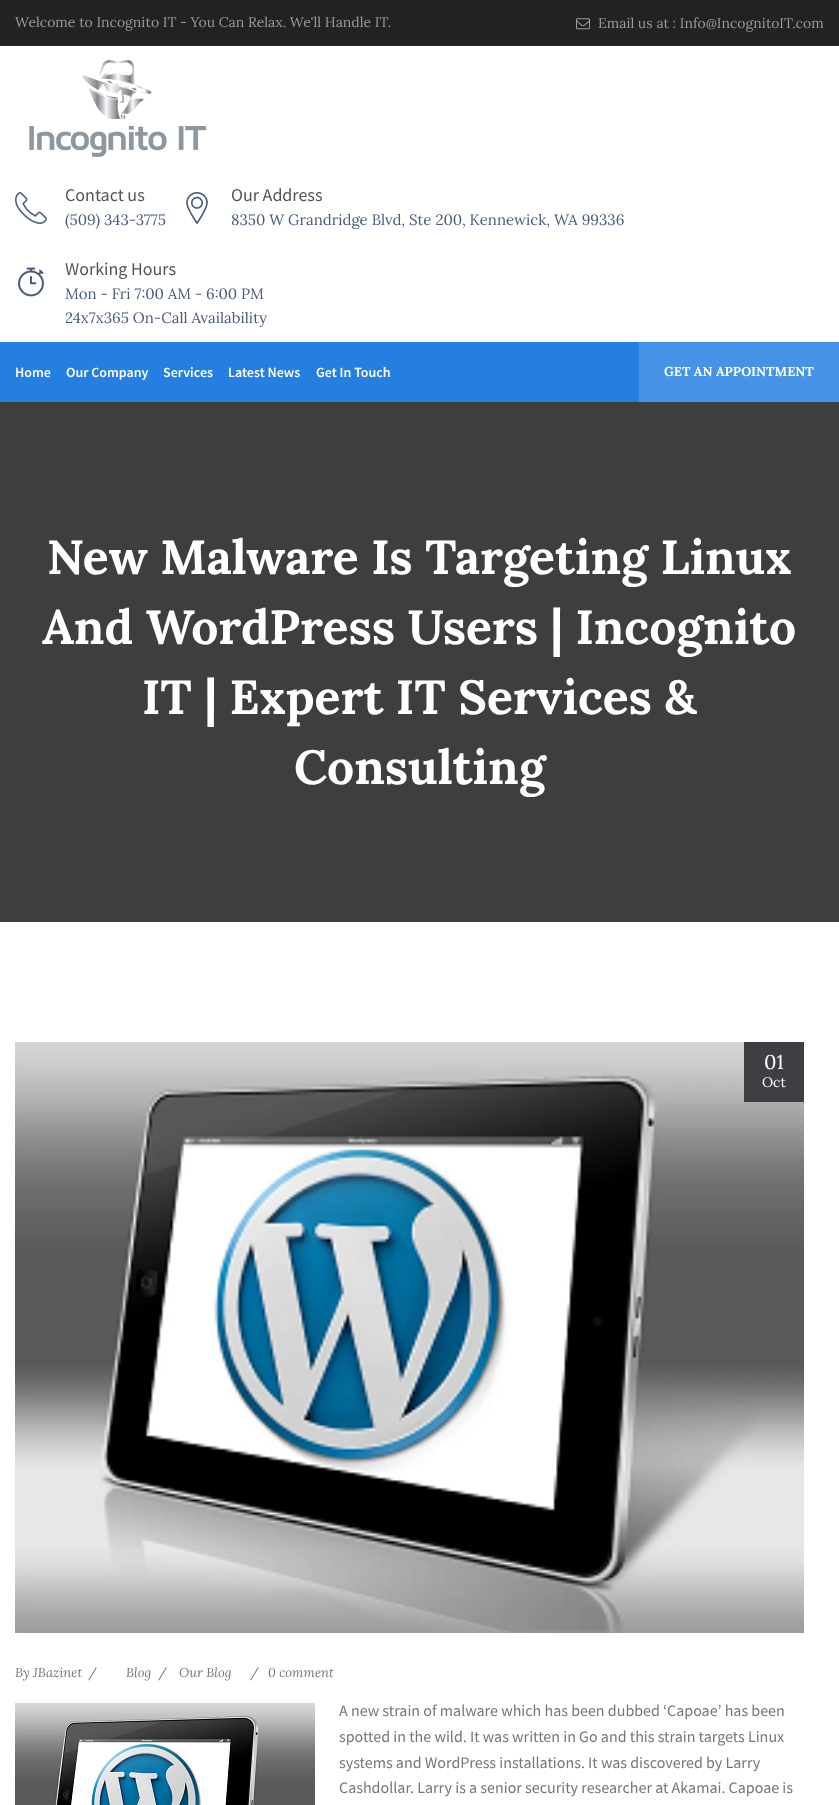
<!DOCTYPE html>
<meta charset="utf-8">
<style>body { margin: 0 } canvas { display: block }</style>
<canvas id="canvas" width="839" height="1805"></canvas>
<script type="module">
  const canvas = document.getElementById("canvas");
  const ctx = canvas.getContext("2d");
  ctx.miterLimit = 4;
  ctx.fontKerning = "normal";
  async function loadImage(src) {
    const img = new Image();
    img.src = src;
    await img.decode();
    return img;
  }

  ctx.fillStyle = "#ffffff";
  ctx.fillRect(0, 0, 839, 1805);
  ctx.fillStyle = "#222222";
  ctx.fillRect(0, 0, 839, 46);
  ctx.font = "14px Lora";
  ctx.fillStyle = "#9b9b9b";
  ctx.fillText("Welcome to Incognito IT - You Can Relax. We'll Handle IT.", 15, 27);
  ctx.drawImage(await loadImage("img1.png"), 576, 18, 14, 12);
  ctx.fillText("Email us at : Info@IncognitoIT.com", 598, 28);
  ctx.drawImage(await loadImage("img2.png"), 29, 60, 177, 97);
  ctx.drawImage(await loadImage("img3.png"), 15, 192, 32, 32);
  ctx.font = "18px Source Sans Pro";
  ctx.fillStyle = "#555555";
  ctx.fillText("Contact us", 65, 201);
  ctx.font = "15px Lora";
  ctx.fillStyle = "#4a5c7a";
  ctx.fillText("(509) 343-3775", 65, 225);
  ctx.drawImage(await loadImage("img4.png"), 186, 192, 22, 32);
  ctx.font = "18px Source Sans Pro";
  ctx.fillStyle = "#555555";
  ctx.fillText("Our Address", 231, 201);
  ctx.font = "15px Lora";
  ctx.fillStyle = "#4a5c7a";
  ctx.fillText("8350 W Grandridge Blvd, Ste 200, Kennewick, WA 99336", 231, 225);
  ctx.drawImage(await loadImage("img5.png"), 18, 267, 26, 30);
  ctx.font = "18px Source Sans Pro";
  ctx.fillStyle = "#555555";
  ctx.fillText("Working Hours", 65, 275);
  ctx.font = "15px Lora";
  ctx.fillStyle = "#4a5c7a";
  ctx.fillText("Mon - Fri 7:00 AM - 6:00 PM", 65, 299);
  ctx.fillText("24x7x365 On-Call Availability", 65, 323);
  ctx.fillStyle = "#247fe1";
  ctx.fillRect(0, 342, 639, 60);
  ctx.font = "600 14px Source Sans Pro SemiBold";
  ctx.fillStyle = "#ffffff";
  ctx.fillText("Home", 15, 377);
  ctx.fillText("Our Company", 66, 377);
  ctx.fillText("Services", 163, 377);
  ctx.fillText("Latest News", 228, 377);
  ctx.fillText("Get In Touch", 316, 377);
  ctx.fillStyle = "#4592e6";
  ctx.fillRect(639, 342, 200, 60);
  ctx.font = "bold 13px Lora";
  ctx.fillStyle = "#ffffff";
  ctx.fillText("GET AN APPOINTMENT", 664, 376);
  ctx.fillStyle = "#3d3f3f";
  ctx.fillRect(0, 402, 839, 520);
  ctx.font = "bold 48px Lora";
  ctx.fillStyle = "#ffffff";
  ctx.fillText("New Malware Is Targeting Linux", 47, 574);
  ctx.fillText("And WordPress Users | Incognito", 42, 644);
  ctx.fillText("IT | Expert IT Services &", 142, 714);
  ctx.fillText("Consulting", 294, 784);
  ctx.drawImage(await loadImage("img6.png"), 15, 1042, 789, 591);
  ctx.fillStyle = "#3d3f43";
  ctx.fillRect(744, 1042, 60, 60);
  ctx.font = "20px Lora";
  ctx.fillStyle = "#ffffff";
  ctx.fillText("01", 764, 1069);
  ctx.font = "14px Lora";
  ctx.fillText("Oct", 762, 1087);
  ctx.font = "italic 13px Lora";
  ctx.fillStyle = "#777777";
  ctx.fillText("By JBazinet", 15, 1677);
  ctx.font = "13px Lora";
  ctx.fillText("/", 88, 1677);
  ctx.font = "italic 13px Lora";
  ctx.fillText("Blog", 126, 1677);
  ctx.font = "13px Lora";
  ctx.fillText("/", 158, 1677);
  ctx.font = "italic 13px Lora";
  ctx.fillText("Our Blog", 179, 1677);
  ctx.font = "13px Lora";
  ctx.fillText("/", 250, 1677);
  ctx.font = "italic 13px Lora";
  ctx.fillText("0 comment", 268, 1677);
  ctx.drawImage(await loadImage("img7.png"), 15, 1703, 300, 102);
  ctx.font = "16px Source Sans Pro";
  ctx.fillText("A new strain of malware which has been dubbed ‘Capoae’ has been", 339, 1716);
  ctx.fillText("spotted in the wild. It was written in Go and this strain targets Linux", 339, 1742);
  ctx.fillText("systems and WordPress installations. It was discovered by Larry", 339, 1768);
  ctx.fillText("Cashdollar. Larry is a senior security researcher at Akamai. Capoae is", 339, 1793);
</script>
